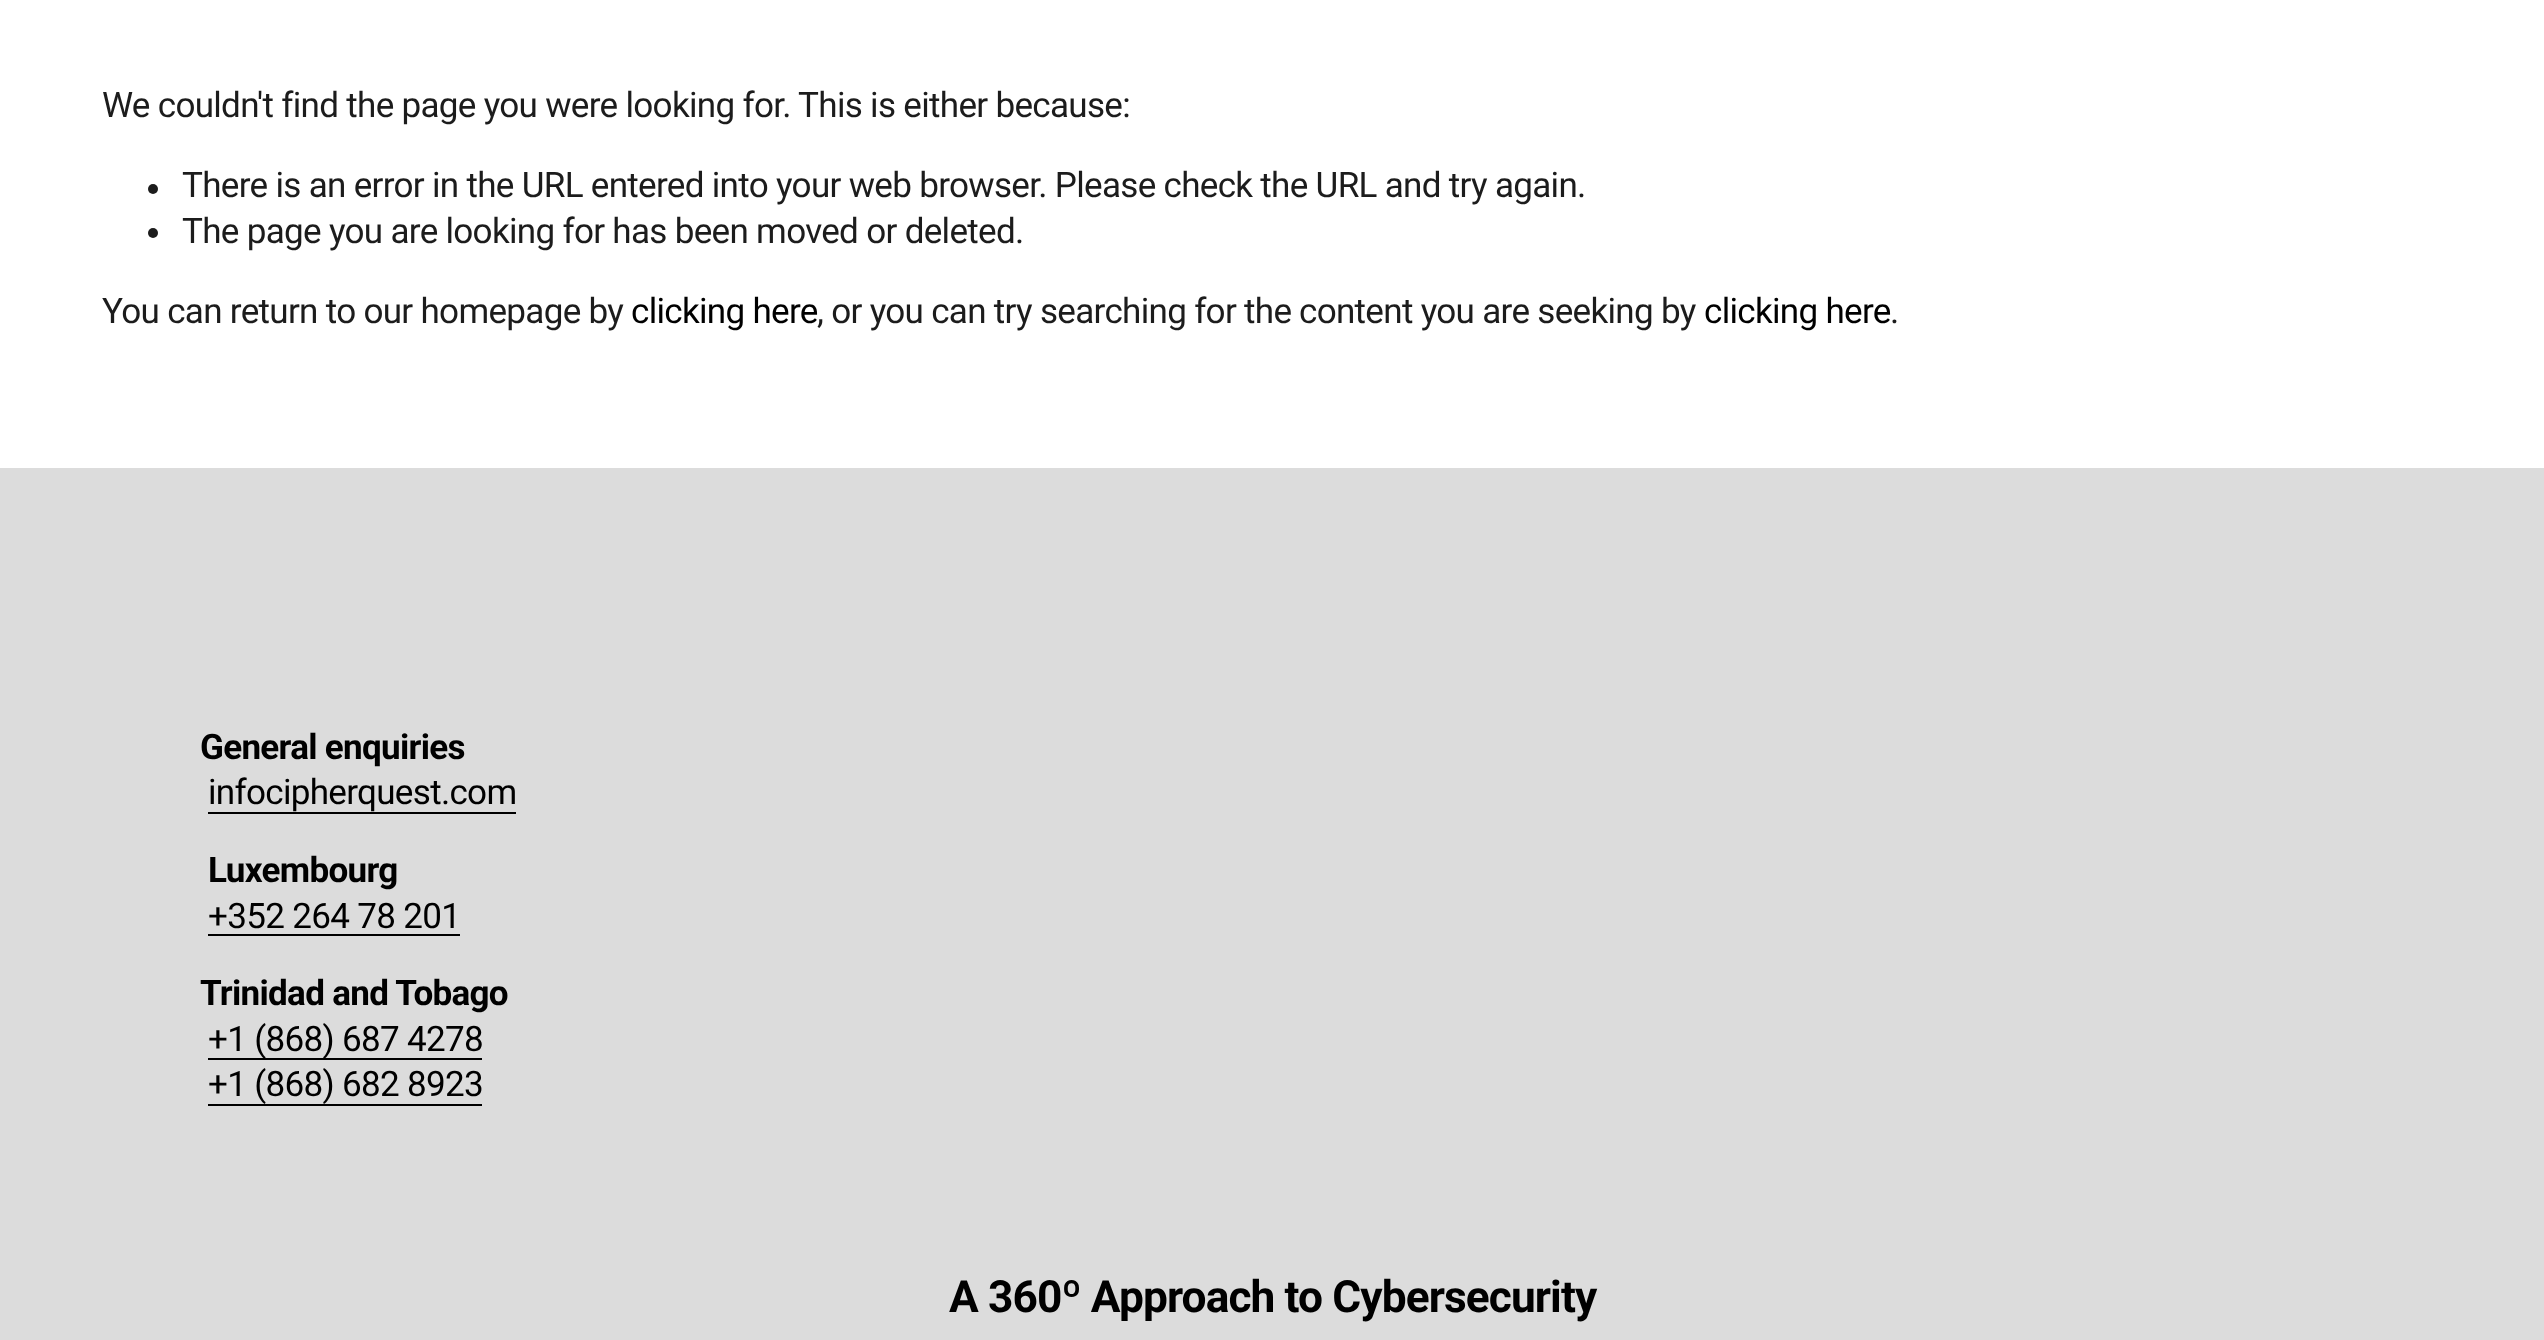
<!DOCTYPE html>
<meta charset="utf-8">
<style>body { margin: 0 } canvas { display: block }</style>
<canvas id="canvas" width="2544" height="1340"></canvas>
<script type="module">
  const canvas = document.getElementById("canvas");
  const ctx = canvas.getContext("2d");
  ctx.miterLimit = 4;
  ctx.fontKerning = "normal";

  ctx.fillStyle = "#ffffff";
  ctx.fillRect(0, 0, 2544, 1340);
  ctx.letterSpacing = "-0.7px";
  ctx.font = "35.05px Roboto";
  ctx.fillStyle = "#1c1c1c";
  ctx.fillText("We couldn't find the page you were looking for. This is either because:", 102, 117);
  ctx.beginPath();
  ctx.arc(153, 189, 5, 0, Math.PI * 2);
  ctx.fill();
  ctx.fillText("There is an error in the URL entered into your web browser. Please check the URL and try again.", 182, 197);
  ctx.beginPath();
  ctx.arc(153, 233, 5, 0, Math.PI * 2);
  ctx.fill();
  ctx.fillText("The page you are looking for has been moved or deleted.", 182, 243);
  ctx.fillText("You can return to our homepage by", 102, 323);
  ctx.fillStyle = "#000000";
  ctx.fillText("clicking here", 631, 323);
  ctx.fillStyle = "#1c1c1c";
  ctx.fillText(", or you can try searching for the", 817, 323);
  ctx.fillText("content you are seeking by", 1299, 323);
  ctx.fillStyle = "#000000";
  ctx.fillText("clicking here", 1704, 323);
  ctx.fillStyle = "#1c1c1c";
  ctx.fillText(".", 1890, 323);
  ctx.fillStyle = "#dcdcdc";
  ctx.fillRect(0, 468, 2544, 872);
  ctx.font = "bold 35.05px Roboto";
  ctx.fillStyle = "#000000";
  ctx.fillText("General enquiries", 200, 759);
  ctx.font = "35.05px Roboto";
  ctx.fillText("infocipherquest.com", 208, 804);
  ctx.fillRect(208, 812, 308, 2);
  ctx.font = "bold 35.05px Roboto";
  ctx.fillText("Luxembourg", 208, 882);
  ctx.font = "35.05px Roboto";
  ctx.fillText("+352 264 78 201", 208, 928);
  ctx.fillRect(208, 934, 252, 2);
  ctx.font = "bold 35.05px Roboto";
  ctx.fillText("Trinidad and Tobago", 200, 1005);
  ctx.fillRect(208, 1058, 274, 2);
  ctx.font = "35.05px Roboto";
  ctx.fillText("+1 (868) 687 4278", 208, 1051);
  ctx.fillText("+1 (868) 682 8923", 208, 1096);
  ctx.fillRect(208, 1104, 274, 2);
  ctx.letterSpacing = "-0.9px";
  ctx.font = "bold 44.25px Roboto";
  ctx.fillText("A 360º Approach to Cybersecurity", 949, 1312);
</script>
